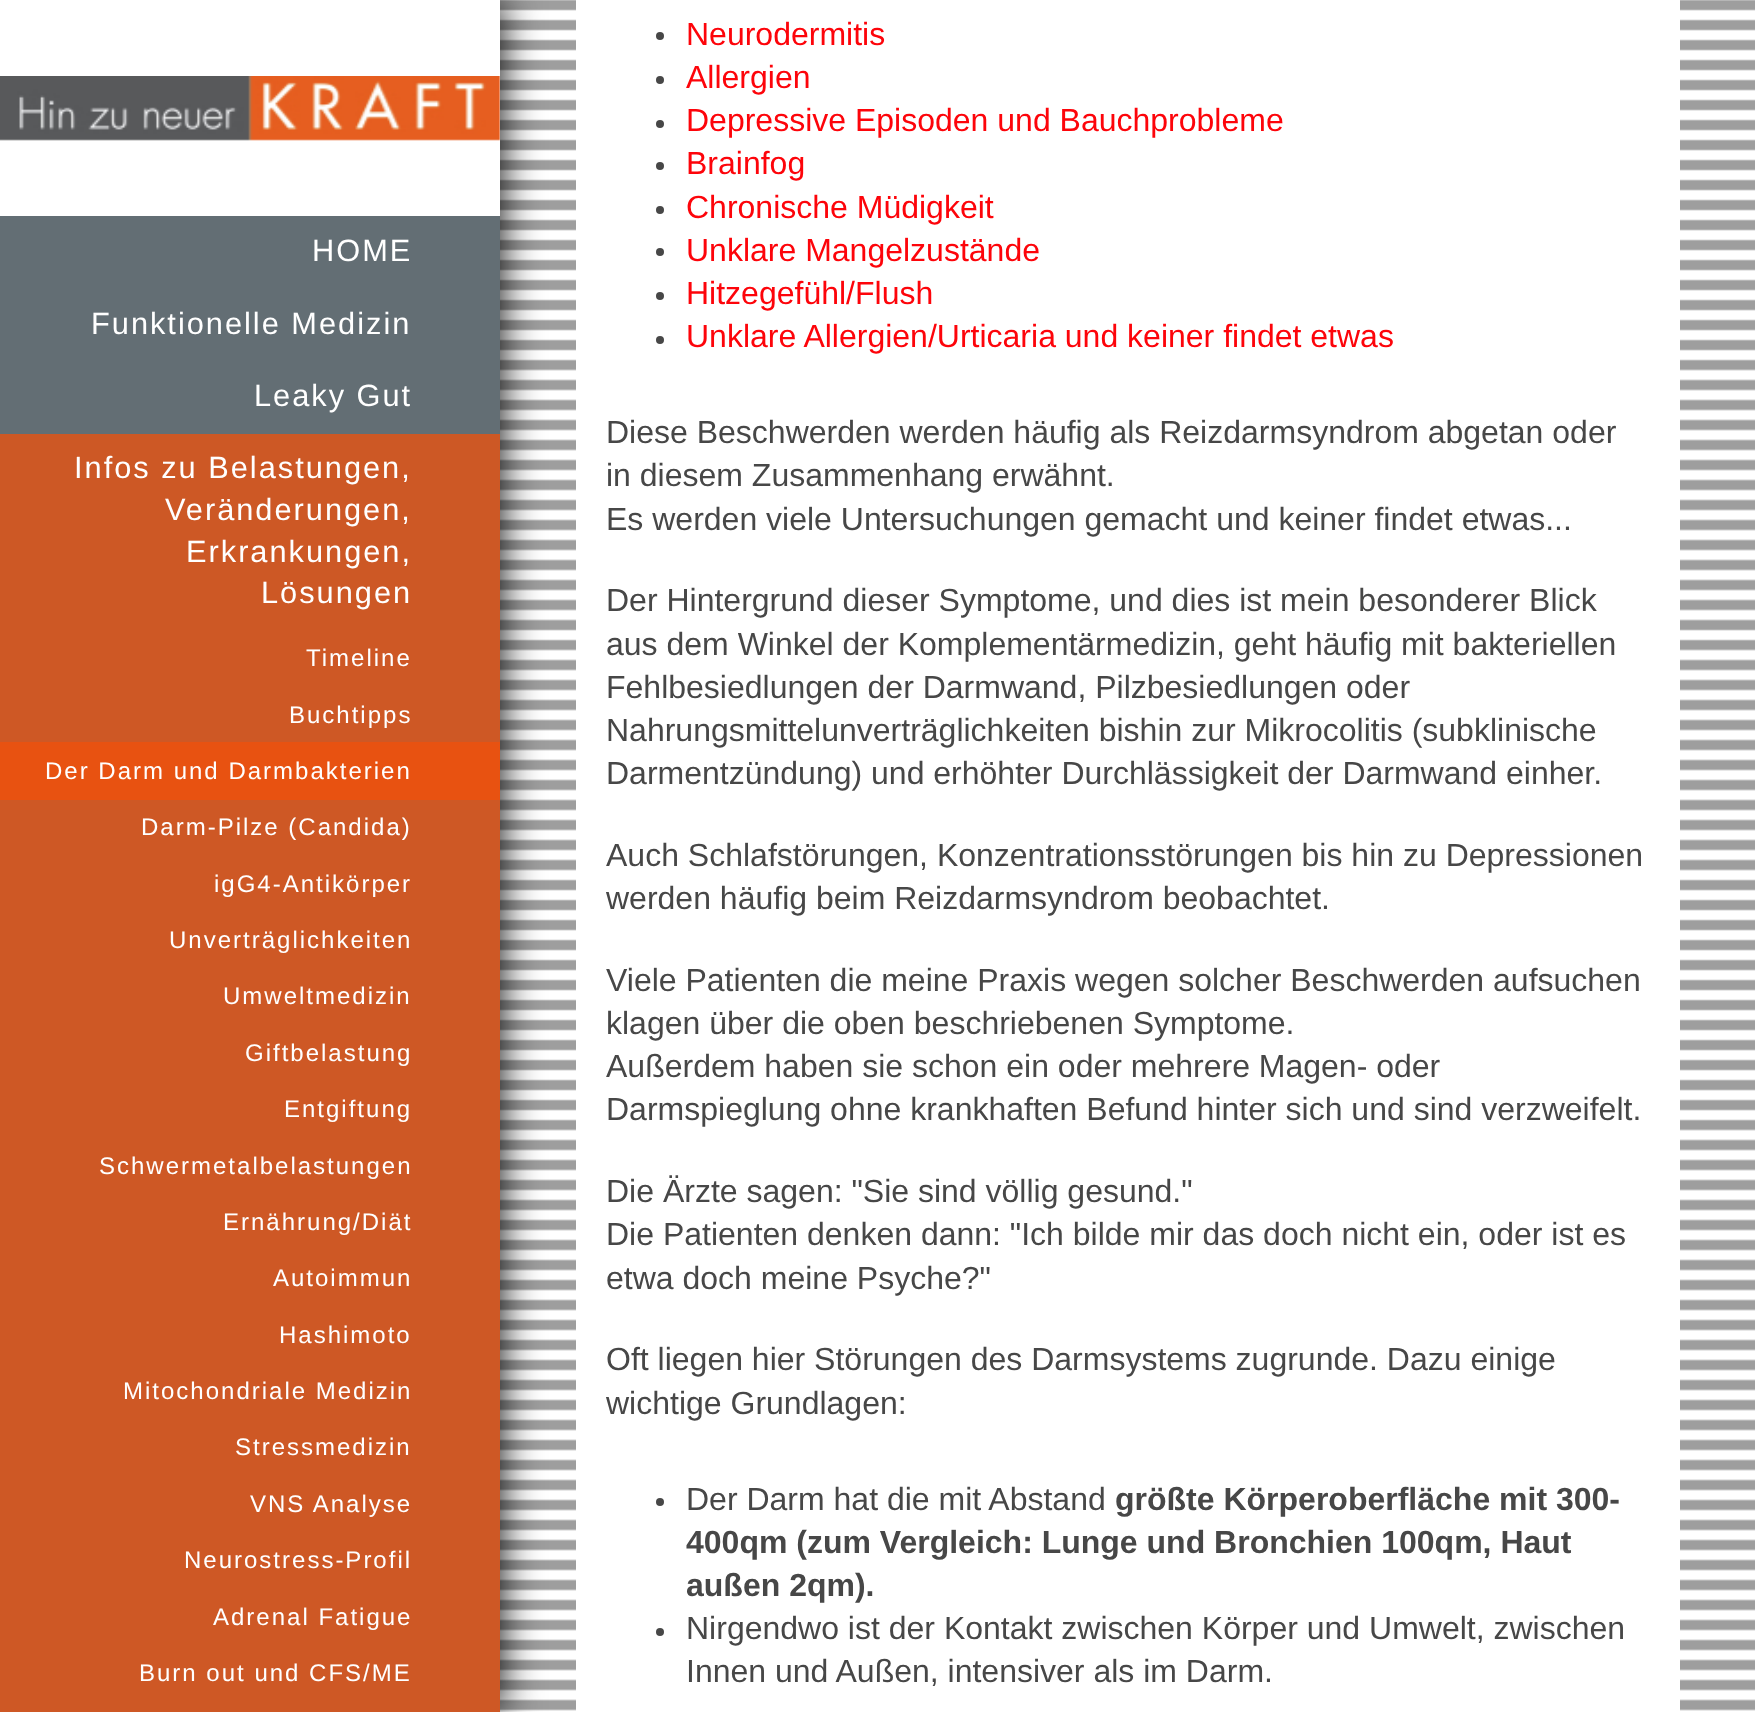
<!DOCTYPE html>
<meta charset="utf-8">
<style>body { margin: 0 } canvas { display: block }</style>
<canvas id="canvas" width="1755" height="1712"></canvas>
<script type="module">
  const canvas = document.getElementById("canvas");
  const ctx = canvas.getContext("2d");
  ctx.miterLimit = 4;
  ctx.fontKerning = "normal";
  async function loadImage(src) {
    const img = new Image();
    img.src = src;
    await img.decode();
    return img;
  }

  ctx.fillStyle = "#9e9e9e";
  ctx.fillRect(0, 0, 1755, 1712);
  ctx.drawImage(await loadImage("img1.png"), 500, 0, 1255, 1712);
  ctx.fillStyle = "#000000";
  ctx.filter = "blur(20px)";
  ctx.beginPath();
  ctx.rect(0, 0, 500, 1712);
  ctx.fill();
  ctx.filter = "none";
  ctx.fillStyle = "#ffffff";
  ctx.fillRect(576, 0, 1104, 1711);
  ctx.fillStyle = "#474747";
  ctx.beginPath();
  ctx.arc(660, 36, 4, 0, Math.PI * 2);
  ctx.fill();
  ctx.font = "32px Liberation Sans";
  ctx.fillStyle = "#fd040a";
  ctx.fillText("Neurodermitis", 686, 45);
  ctx.fillStyle = "#474747";
  ctx.beginPath();
  ctx.arc(660, 80, 4, 0, Math.PI * 2);
  ctx.fill();
  ctx.fillStyle = "#fd040a";
  ctx.fillText("Allergien", 686, 88);
  ctx.fillStyle = "#474747";
  ctx.beginPath();
  ctx.arc(660, 124, 4, 0, Math.PI * 2);
  ctx.fill();
  ctx.fillStyle = "#fd040a";
  ctx.fillText("Depressive Episoden und Bauchprobleme", 686, 131);
  ctx.fillStyle = "#474747";
  ctx.beginPath();
  ctx.arc(660, 166, 4, 0, Math.PI * 2);
  ctx.fill();
  ctx.fillStyle = "#fd040a";
  ctx.fillText("Brainfog", 686, 174);
  ctx.fillStyle = "#474747";
  ctx.beginPath();
  ctx.arc(660, 210, 4, 0, Math.PI * 2);
  ctx.fill();
  ctx.fillStyle = "#fd040a";
  ctx.fillText("Chronische Müdigkeit", 686, 218);
  ctx.fillStyle = "#474747";
  ctx.beginPath();
  ctx.arc(660, 252, 4, 0, Math.PI * 2);
  ctx.fill();
  ctx.fillStyle = "#fd040a";
  ctx.fillText("Unklare Mangelzustände", 686, 261);
  ctx.fillStyle = "#474747";
  ctx.beginPath();
  ctx.arc(660, 296, 4, 0, Math.PI * 2);
  ctx.fill();
  ctx.fillStyle = "#fd040a";
  ctx.fillText("Hitzegefühl/Flush", 686, 304);
  ctx.fillStyle = "#474747";
  ctx.beginPath();
  ctx.arc(660, 340, 4, 0, Math.PI * 2);
  ctx.fill();
  ctx.fillStyle = "#fd040a";
  ctx.fillText("Unklare Allergien/Urticaria und keiner findet etwas", 686, 347);
  ctx.fillStyle = "#474747";
  ctx.fillText("Diese Beschwerden werden häufig als Reizdarmsyndrom abgetan oder", 606, 443);
  ctx.fillText("in diesem Zusammenhang erwähnt.", 606, 486);
  ctx.fillText("Es werden viele Untersuchungen gemacht und keiner findet etwas...", 606, 530);
  ctx.fillText("Der Hintergrund dieser Symptome, und dies ist mein besonderer Blick", 606, 611);
  ctx.fillText("aus dem Winkel der Komplementärmedizin, geht häufig mit bakteriellen", 606, 655);
  ctx.fillText("Fehlbesiedlungen der Darmwand, Pilzbesiedlungen oder", 606, 698);
  ctx.fillText("Nahrungsmittelunverträglichkeiten bishin zur Mikrocolitis (subklinische", 606, 741);
  ctx.fillText("Darmentzündung) und erhöhter Durchlässigkeit der Darmwand einher.", 606, 784);
  ctx.fillText("Auch Schlafstörungen, Konzentrationsstörungen bis hin zu Depressionen", 606, 866);
  ctx.fillText("werden häufig beim Reizdarmsyndrom beobachtet.", 606, 909);
  ctx.fillText("Viele Patienten die meine Praxis wegen solcher Beschwerden aufsuchen", 606, 991);
  ctx.fillText("klagen über die oben beschriebenen Symptome.", 606, 1034);
  ctx.fillText("Außerdem haben sie schon ein oder mehrere Magen- oder", 606, 1077);
  ctx.fillText("Darmspieglung ohne krankhaften Befund hinter sich und sind verzweifelt.", 606, 1120);
  ctx.fillText("Die Ärzte sagen: \"Sie sind völlig gesund.\"", 606, 1202);
  ctx.fillText("Die Patienten denken dann: \"Ich bilde mir das doch nicht ein, oder ist es", 606, 1245);
  ctx.fillText("etwa doch meine Psyche?\"", 606, 1289);
  ctx.fillText("Oft liegen hier Störungen des Darmsystems zugrunde. Dazu einige", 606, 1370);
  ctx.fillText("wichtige Grundlagen:", 606, 1414);
  ctx.beginPath();
  ctx.arc(660, 1502, 4, 0, Math.PI * 2);
  ctx.fill();
  ctx.fillText("Der Darm hat die mit Abstand", 686, 1510);
  ctx.font = "bold 32px Liberation Sans";
  ctx.fillText("größte Körperoberfläche mit 300-", 1115, 1510);
  ctx.fillText("400qm (zum Vergleich: Lunge und Bronchien 100qm, Haut", 686, 1553);
  ctx.fillText("außen 2qm).", 686, 1596);
  ctx.beginPath();
  ctx.arc(660, 1632, 4, 0, Math.PI * 2);
  ctx.fill();
  ctx.font = "32px Liberation Sans";
  ctx.fillText("Nirgendwo ist der Kontakt zwischen Körper und Umwelt, zwischen", 686, 1639);
  ctx.fillText("Innen und Außen, intensiver als im Darm.", 686, 1682);
  ctx.fillStyle = "#ffffff";
  ctx.fillRect(0, 0, 500, 216);
  ctx.drawImage(await loadImage("img2.png"), 0, 76, 500, 65);
  ctx.fillStyle = "#636e74";
  ctx.fillRect(0, 216, 500, 218);
  ctx.letterSpacing = "2px";
  ctx.font = "30.75px Liberation Sans";
  ctx.fillStyle = "#ffffff";
  ctx.fillText("HOME", 312, 261);
  ctx.fillText("Funktionelle Medizin", 91, 334);
  ctx.fillText("Leaky Gut", 254, 406);
  ctx.fillStyle = "#cd5825";
  ctx.fillRect(0, 434, 500, 196);
  ctx.fillStyle = "#ffffff";
  ctx.fillText("Infos zu Belastungen,", 74, 478);
  ctx.fillText("Veränderungen,", 165, 520);
  ctx.fillText("Erkrankungen,", 186, 562);
  ctx.fillText("Lösungen", 261, 603);
  ctx.fillStyle = "#ce5825";
  ctx.fillRect(0, 630, 500, 1082);
  ctx.font = "24px Liberation Sans";
  ctx.fillStyle = "#ffffff";
  ctx.fillText("Timeline", 306, 666);
  ctx.fillText("Buchtipps", 289, 723);
  ctx.fillStyle = "#e85211";
  ctx.fillRect(0, 742, 500, 58);
  ctx.fillStyle = "#ffffff";
  ctx.fillText("Der Darm und Darmbakterien", 45, 779);
  ctx.fillText("Darm-Pilze (Candida)", 141, 835);
  ctx.fillText("igG4-Antikörper", 214, 892);
  ctx.fillText("Unverträglichkeiten", 169, 948);
  ctx.fillText("Umweltmedizin", 223, 1004);
  ctx.fillText("Giftbelastung", 245, 1061);
  ctx.fillText("Entgiftung", 284, 1117);
  ctx.fillText("Schwermetalbelastungen", 99, 1174);
  ctx.fillText("Ernährung/Diät", 223, 1230);
  ctx.fillText("Autoimmun", 273, 1286);
  ctx.fillText("Hashimoto", 279, 1343);
  ctx.fillText("Mitochondriale Medizin", 123, 1399);
  ctx.fillText("Stressmedizin", 235, 1455);
  ctx.fillText("VNS Analyse", 250, 1512);
  ctx.fillText("Neurostress-Profil", 184, 1568);
  ctx.fillText("Adrenal Fatigue", 213, 1625);
  ctx.fillText("Burn out und CFS/ME", 139, 1681);
</script>
